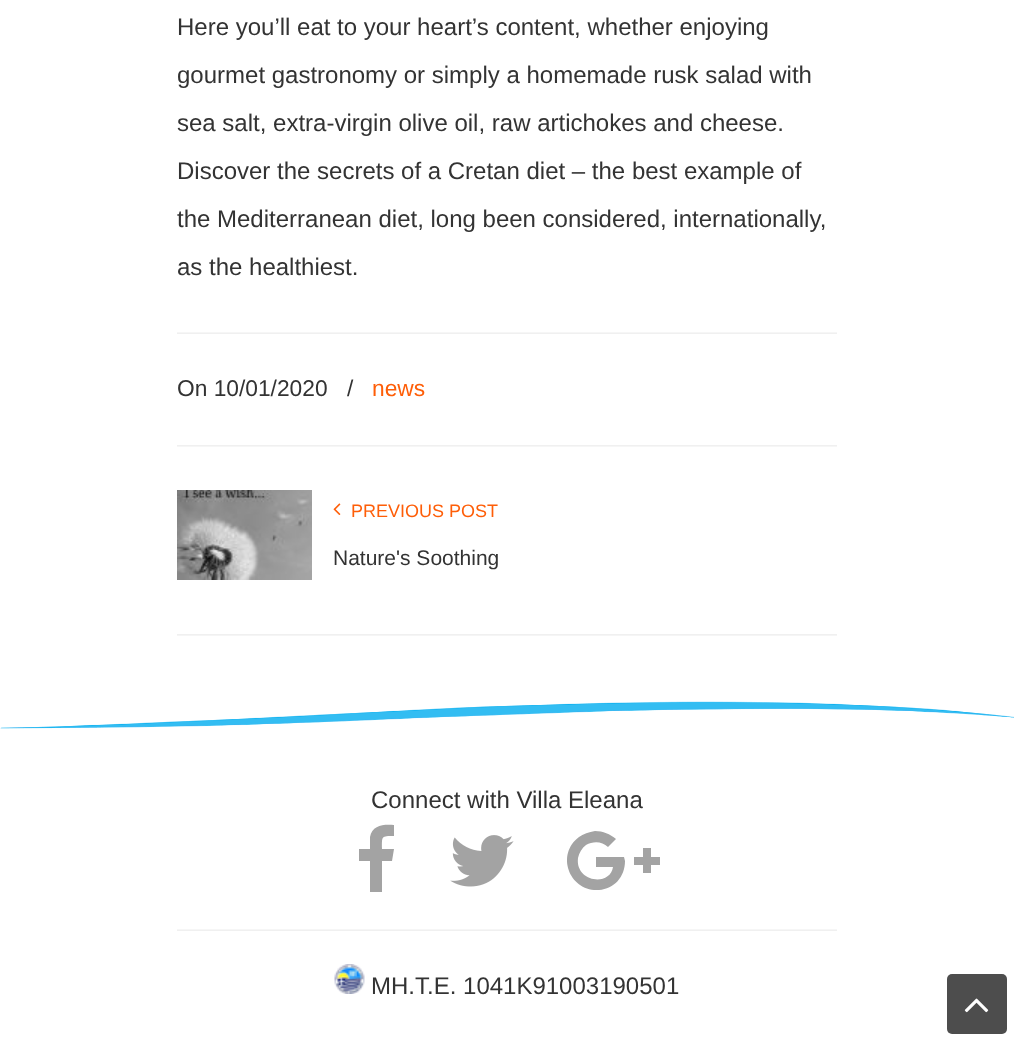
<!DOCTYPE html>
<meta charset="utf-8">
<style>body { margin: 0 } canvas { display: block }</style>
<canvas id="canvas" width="1014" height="1040"></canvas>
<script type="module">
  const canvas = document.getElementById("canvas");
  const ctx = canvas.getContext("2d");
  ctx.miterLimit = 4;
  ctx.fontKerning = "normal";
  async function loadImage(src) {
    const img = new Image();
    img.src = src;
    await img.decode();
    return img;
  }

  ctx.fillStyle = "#ffffff";
  ctx.fillRect(0, 0, 1014, 1040);
  ctx.font = "24px Liberation Sans";
  ctx.fillStyle = "#333333";
  ctx.fillText("Here you’ll eat to your heart’s content, whether enjoying", 177, 35);
  ctx.fillText("gourmet gastronomy or simply a homemade rusk salad with", 177, 83);
  ctx.fillText("sea salt, extra-virgin olive oil, raw artichokes and cheese.", 177, 131);
  ctx.fillText("Discover the secrets of a Cretan diet – the best example of", 177, 179);
  ctx.fillText("the Mediterranean diet, long been considered, internationally,", 177, 227);
  ctx.fillText("as the healthiest.", 177, 275);
  ctx.drawImage(await loadImage("img1.png"), 177, 332, 660, 2);
  ctx.font = "22.75px Liberation Sans";
  ctx.fillText("On 10/01/2020", 177, 396);
  ctx.fillText("/", 347, 396);
  ctx.fillStyle = "#fe5e08";
  ctx.fillText("news", 372, 396);
  ctx.drawImage(await loadImage("img2.png"), 177, 445, 660, 2);
  ctx.drawImage(await loadImage("img3.png"), 177, 490, 135, 90);
  ctx.drawImage(await loadImage("img4.png"), 333, 503, 8, 12);
  ctx.font = "18px Liberation Sans";
  ctx.fillText("PREVIOUS POST", 351, 517);
  ctx.font = "21px Liberation Sans";
  ctx.fillStyle = "#333333";
  ctx.fillText("Nature's Soothing", 333, 565);
  ctx.drawImage(await loadImage("img5.png"), 177, 634, 660, 2);
  ctx.drawImage(await loadImage("img6.png"), 0, 701, 1014, 28);
  ctx.font = "24px Liberation Sans";
  ctx.fillText("Connect with Villa Eleana", 371, 808);
  ctx.fillStyle = "#a3a3a3";
  ctx.beginPath();
  ctx.moveTo(394, 825);
  ctx.lineTo(394, 836);
  ctx.bezierCurveTo(381, 836, 382, 836, 382, 849);
  ctx.lineTo(394, 849);
  ctx.lineTo(392, 861);
  ctx.lineTo(382, 861);
  ctx.lineTo(382, 892);
  ctx.lineTo(370, 892);
  ctx.lineTo(370, 861);
  ctx.lineTo(359, 861);
  ctx.lineTo(359, 849);
  ctx.lineTo(370, 849);
  ctx.lineTo(370, 837);
  ctx.bezierCurveTo(372, 825, 384, 824, 394, 825);
  ctx.closePath();
  ctx.fill();
  ctx.drawImage(await loadImage("img7.png"), 450, 835, 64, 52);
  ctx.beginPath();
  ctx.moveTo(625, 861);
  ctx.bezierCurveTo(625, 877, 614, 889, 599, 890);
  ctx.bezierCurveTo(570, 892, 555, 855, 579, 837);
  ctx.bezierCurveTo(583, 834, 589, 832, 595, 831);
  ctx.bezierCurveTo(603, 831, 610, 834, 616, 839);
  ctx.lineTo(608, 847);
  ctx.bezierCurveTo(602, 841, 593, 841, 586, 845);
  ctx.bezierCurveTo(582, 848, 579, 853, 578, 858);
  ctx.bezierCurveTo(575, 882, 610, 887, 613, 867);
  ctx.lineTo(596, 867);
  ctx.lineTo(596, 857);
  ctx.lineTo(624, 857);
  ctx.closePath();
  ctx.moveTo(660, 857);
  ctx.lineTo(660, 865);
  ctx.lineTo(651, 865);
  ctx.lineTo(651, 873);
  ctx.lineTo(643, 873);
  ctx.lineTo(643, 865);
  ctx.lineTo(634, 865);
  ctx.lineTo(634, 857);
  ctx.lineTo(643, 857);
  ctx.lineTo(643, 848);
  ctx.lineTo(651, 848);
  ctx.lineTo(651, 857);
  ctx.closePath();
  ctx.fill();
  ctx.drawImage(await loadImage("img1.png"), 177, 929, 660, 2);
  ctx.drawImage(await loadImage("img8.png"), 334, 964, 31, 30);
  ctx.fillStyle = "#333333";
  ctx.fillText("ΜΗ.Τ.Ε. 1041K91003190501", 371, 994);
  ctx.fillStyle = "#4d4d4d";
  ctx.beginPath();
  ctx.roundRect(947, 974, 60, 60, 5);
  ctx.fill();
  ctx.drawImage(await loadImage("img9.png"), 964, 998, 25, 15);
</script>
